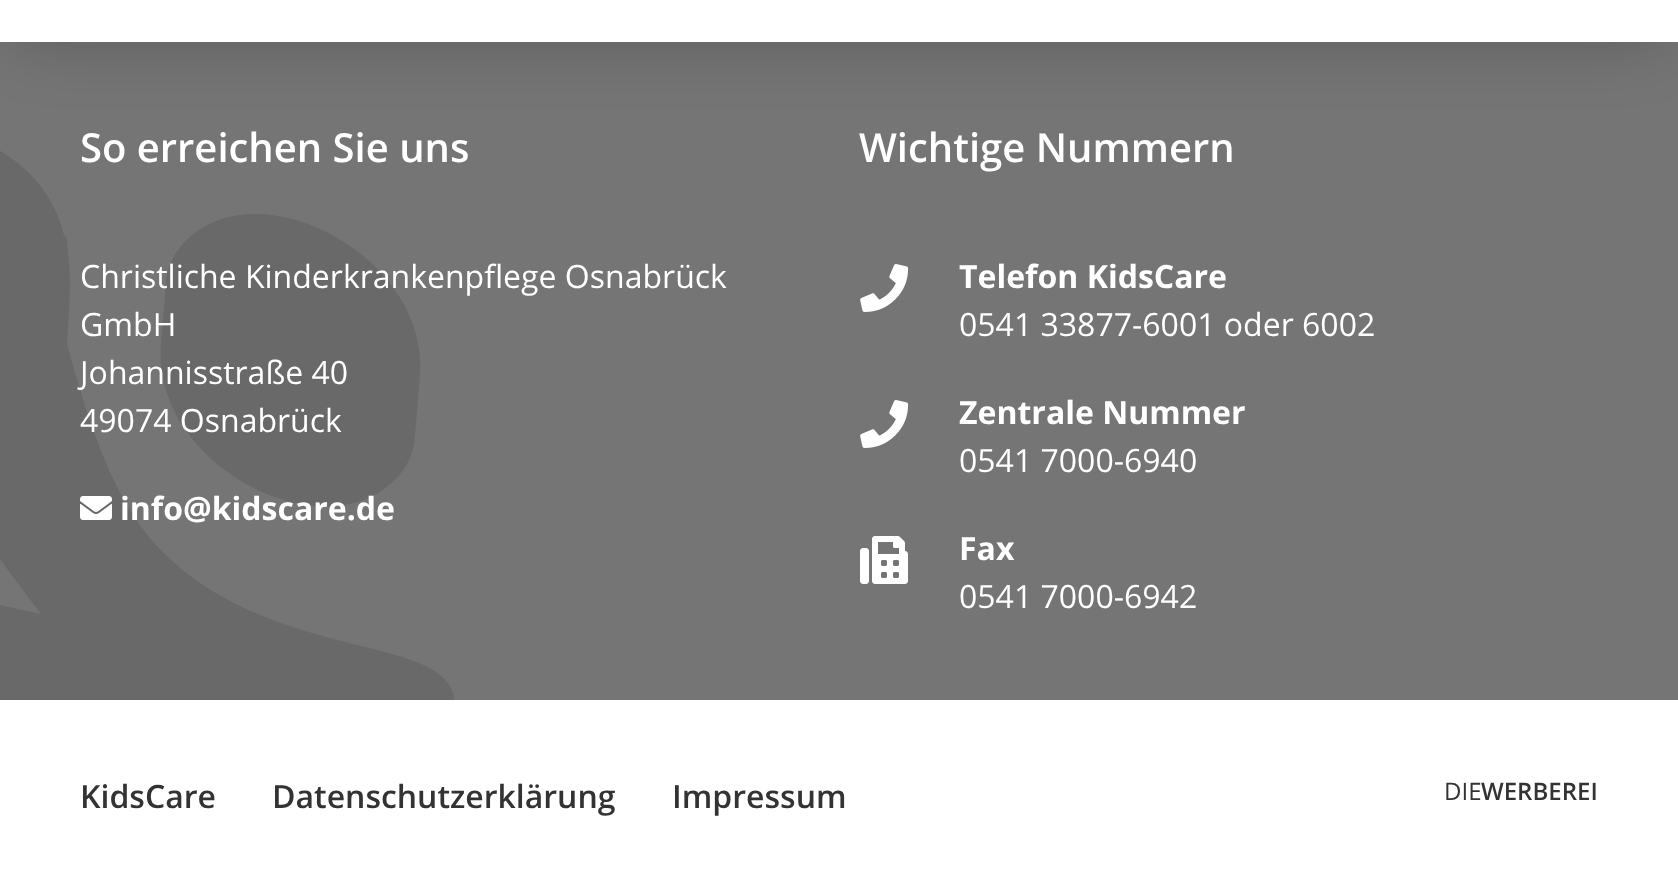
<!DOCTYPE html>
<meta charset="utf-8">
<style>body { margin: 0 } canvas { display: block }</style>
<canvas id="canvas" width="1678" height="891"></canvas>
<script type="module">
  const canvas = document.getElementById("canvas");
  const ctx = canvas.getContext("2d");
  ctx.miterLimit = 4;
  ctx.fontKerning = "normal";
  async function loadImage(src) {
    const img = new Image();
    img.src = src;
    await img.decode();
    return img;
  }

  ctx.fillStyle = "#ffffff";
  ctx.fillRect(0, 0, 1678, 891);
  ctx.fillStyle = "#757575";
  ctx.fillRect(0, 42, 1678, 658);
  ctx.save();
  ctx.beginPath();
  ctx.rect(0, 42, 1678, 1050);
  ctx.clip();
  ctx.fillStyle = "rgba(0, 0, 0, 0.2)";
  ctx.filter = "blur(32px)";
  ctx.beginPath();
  ctx.roundRect(0, -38, 1678, 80, 40);
  ctx.fill();
  ctx.filter = "none";
  ctx.restore();
  ctx.drawImage(await loadImage("img4.png"), 0, 151, 454, 549);
  ctx.font = "600 40px Open Sans";
  ctx.fillStyle = "#ffffff";
  ctx.fillText("So erreichen Sie uns", 80, 162);
  ctx.font = "32px Open Sans";
  ctx.fillText("Christliche Kinderkrankenpflege Osnabrück", 80, 288);
  ctx.fillText("GmbH", 80, 336);
  ctx.fillText("Johannisstraße 40", 80, 384);
  ctx.fillText("49074 Osnabrück", 80, 432);
  ctx.drawImage(await loadImage("img1.png"), 80, 496, 32, 24);
  ctx.font = "bold 32px Open Sans";
  ctx.fillText("info@kidscare.de", 120, 520);
  ctx.font = "600 40px Open Sans";
  ctx.fillText("Wichtige Nummern", 859, 162);
  ctx.drawImage(await loadImage("img2.png"), 860, 264, 49, 48);
  ctx.font = "bold 32px Open Sans";
  ctx.fillText("Telefon KidsCare", 959, 288);
  ctx.font = "32px Open Sans";
  ctx.fillText("0541 33877-6001 oder 6002", 959, 336);
  ctx.drawImage(await loadImage("img2.png"), 860, 400, 49, 48);
  ctx.font = "bold 32px Open Sans";
  ctx.fillText("Zentrale Nummer", 959, 424);
  ctx.font = "32px Open Sans";
  ctx.fillText("0541 7000-6940", 959, 472);
  ctx.drawImage(await loadImage("img3.png"), 860, 536, 48, 48);
  ctx.font = "bold 32px Open Sans";
  ctx.fillText("Fax", 959, 560);
  ctx.font = "32px Open Sans";
  ctx.fillText("0541 7000-6942", 959, 608);
  ctx.font = "600 32px Open Sans";
  ctx.fillStyle = "#333333";
  ctx.fillText("KidsCare", 80, 808);
  ctx.fillText("Datenschutzerklärung", 272, 808);
  ctx.fillText("Impressum", 672, 808);
  ctx.font = "24px Open Sans";
  ctx.fillText("DIE", 1444, 800);
  ctx.font = "600 24px Open Sans";
  ctx.fillText("WERBEREI", 1481, 800);
</script>
